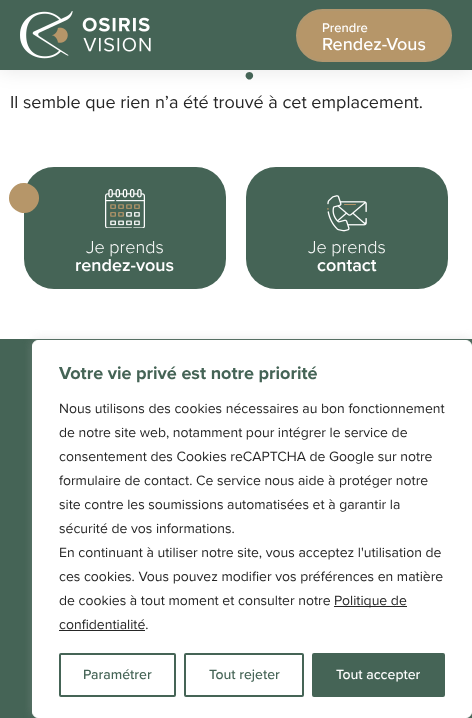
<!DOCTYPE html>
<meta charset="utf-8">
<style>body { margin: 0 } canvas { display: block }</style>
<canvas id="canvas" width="472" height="718"></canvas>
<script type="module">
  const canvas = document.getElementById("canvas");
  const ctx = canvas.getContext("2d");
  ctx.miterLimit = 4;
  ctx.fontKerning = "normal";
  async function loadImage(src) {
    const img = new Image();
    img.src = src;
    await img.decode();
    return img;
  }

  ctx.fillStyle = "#ffffff";
  ctx.fillRect(0, 0, 472, 718);
  ctx.fillStyle = "rgba(0, 0, 0, 0.1)";
  ctx.filter = "blur(10px)";
  ctx.beginPath();
  ctx.rect(0, 0, 472, 70);
  ctx.fill();
  ctx.filter = "none";
  ctx.fillStyle = "#456456";
  ctx.fillRect(0, 0, 472, 70);
  ctx.drawImage(await loadImage("img1.png"), 20, 11, 131, 48);
  ctx.fillStyle = "#b69669";
  ctx.beginPath();
  ctx.roundRect(297, 10, 154, 51, 25.5);
  ctx.fill();
  ctx.strokeStyle = "#b1976f";
  ctx.lineWidth = 2;
  ctx.stroke();
  ctx.font = "500 13px Proxima Nova";
  ctx.fillStyle = "#ffffff";
  ctx.fillText("Prendre", 322, 32);
  ctx.font = "500 18px Proxima Nova";
  ctx.fillText("Rendez-Vous", 322, 50);
  ctx.font = "800 40px Proxima Nova";
  ctx.fillStyle = "#456456";
  ctx.fillText(".", 244, 79);
  ctx.font = "18px Proxima Nova";
  ctx.fillStyle = "#262626";
  ctx.fillText("Il semble que rien n’a été trouvé à cet emplacement.", 10, 108);
  ctx.fillStyle = "#456456";
  ctx.beginPath();
  ctx.roundRect(24, 167, 202, 122, 30);
  ctx.fill();
  ctx.fillStyle = "#b69669";
  ctx.beginPath();
  ctx.moveTo(30, 184.5);
  ctx.bezierCurveTo(33.5, 186, 36.5, 189, 38, 192.5);
  ctx.bezierCurveTo(43, 205, 29.5, 217.5, 18, 211.5);
  ctx.bezierCurveTo(-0.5, 202.5, 12.5, 176.5, 30, 184.5);
  ctx.closePath();
  ctx.fill("evenodd");
  ctx.drawImage(await loadImage("img2.png"), 105, 189, 40, 39);
  ctx.font = "300 18px Proxima Nova";
  ctx.fillStyle = "#ffffff";
  ctx.fillText("Je prends", 86, 253);
  ctx.font = "600 18px Proxima Nova";
  ctx.fillText("rendez-vous", 75, 271);
  ctx.fillStyle = "#456456";
  ctx.beginPath();
  ctx.roundRect(246, 167, 202, 122, 30);
  ctx.fill();
  ctx.drawImage(await loadImage("img3.png"), 327, 195, 40, 37);
  ctx.font = "300 18px Proxima Nova";
  ctx.fillStyle = "#ffffff";
  ctx.fillText("Je prends", 308, 253);
  ctx.font = "600 18px Proxima Nova";
  ctx.fillText("contact", 317, 271);
  ctx.fillStyle = "#456456";
  ctx.fillRect(0, 339, 472, 379);
  ctx.fillStyle = "rgba(172, 171, 171, 0.3)";
  ctx.filter = "blur(5px)";
  ctx.beginPath();
  ctx.roundRect(32, 339, 440, 378, 6);
  ctx.fill();
  ctx.filter = "none";
  ctx.fillStyle = "#ffffff";
  ctx.beginPath();
  ctx.roundRect(32.5, 340.5, 439, 377, 5.5);
  ctx.fill();
  ctx.strokeStyle = "#ffffff";
  ctx.lineWidth = 1;
  ctx.stroke();
  ctx.font = "bold 18px Proxima Nova";
  ctx.fillStyle = "#456456";
  ctx.fillText("Votre vie privé est notre priorité", 59, 379);
  ctx.font = "14px Proxima Nova";
  ctx.fillStyle = "#262626";
  ctx.fillText("Nous utilisons des cookies nécessaires au bon fonctionnement", 59, 413);
  ctx.fillText("de notre site web, notamment pour intégrer le service de", 59, 437);
  ctx.fillText("consentement des Cookies reCAPTCHA de Google sur notre", 59, 461);
  ctx.fillText("formulaire de contact. Ce service nous aide à protéger notre", 59, 485);
  ctx.fillText("site contre les soumissions automatisées et à garantir la", 59, 509);
  ctx.fillText("sécurité de vos informations.", 59, 533);
  ctx.fillText("En continuant à utiliser notre site, vous acceptez l'utilisation de", 59, 557);
  ctx.fillText("ces cookies. Vous pouvez modifier vos préférences en matière", 59, 581);
  ctx.fillText("de cookies à tout moment et consulter notre", 59, 605);
  ctx.fillRect(334, 606, 73, 1);
  ctx.fillText("Politique de", 334, 605);
  ctx.fillText("confidentialité.", 59, 629);
  ctx.fillRect(59, 630, 86, 1);
  ctx.beginPath();
  ctx.roundRect(60, 654, 115, 42, 1);
  ctx.strokeStyle = "#456456";
  ctx.lineWidth = 2;
  ctx.stroke();
  ctx.font = "500 14px Proxima Nova";
  ctx.fillStyle = "#456456";
  ctx.fillText("Paramétrer", 83, 679);
  ctx.beginPath();
  ctx.roundRect(185, 654, 118, 42, 1);
  ctx.stroke();
  ctx.fillText("Tout rejeter", 209, 679);
  ctx.beginPath();
  ctx.roundRect(313, 654, 131, 42, 1);
  ctx.fill();
  ctx.stroke();
  ctx.fillStyle = "#ffffff";
  ctx.fillText("Tout accepter", 336, 679);
</script>
